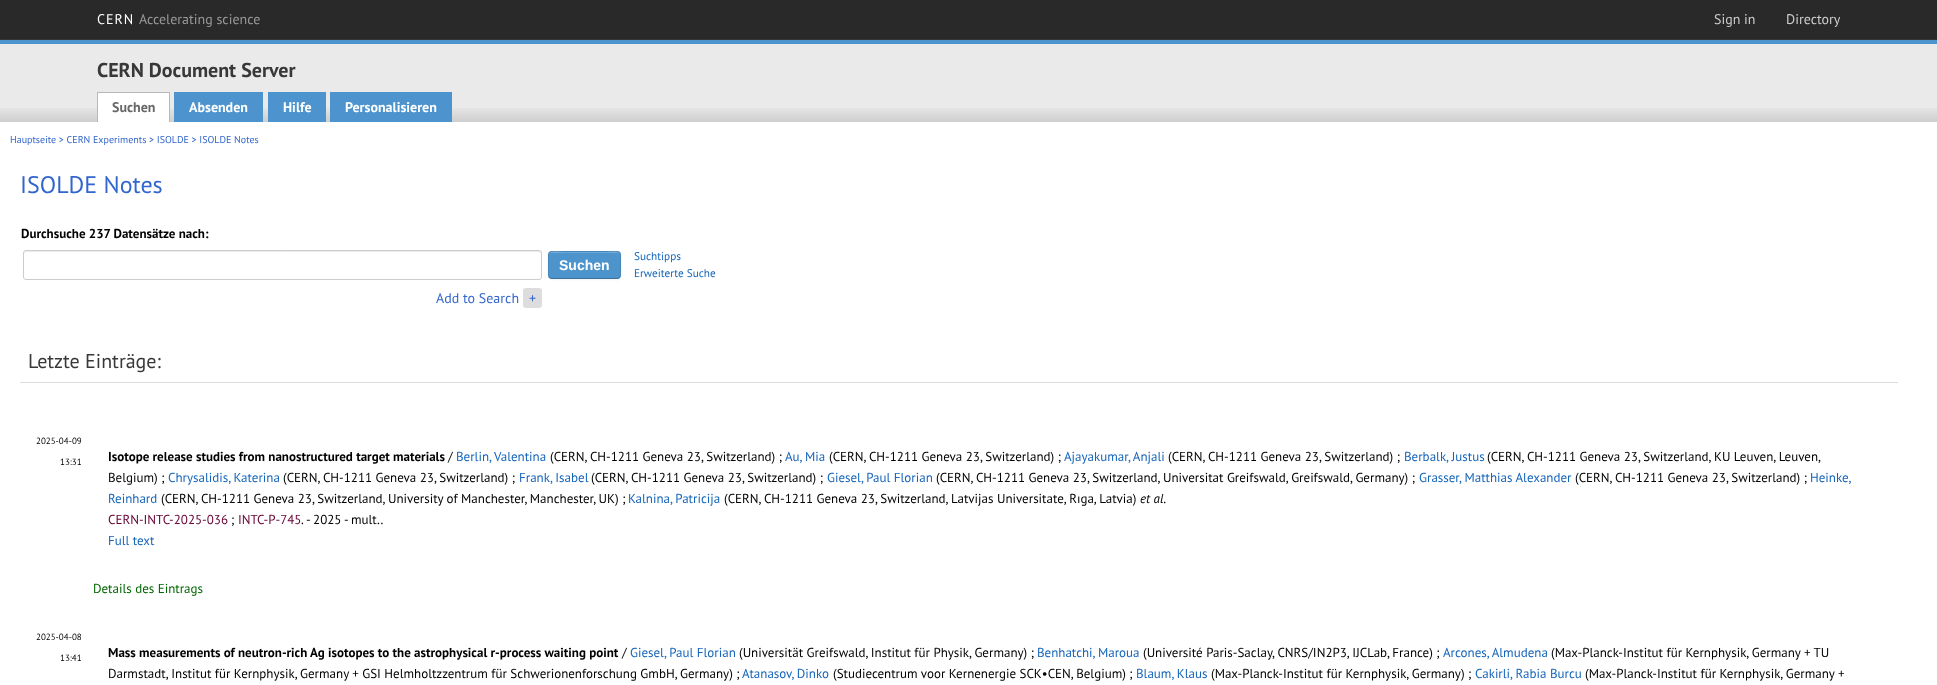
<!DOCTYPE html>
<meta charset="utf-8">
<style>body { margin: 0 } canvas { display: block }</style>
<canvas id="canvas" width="1937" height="685"></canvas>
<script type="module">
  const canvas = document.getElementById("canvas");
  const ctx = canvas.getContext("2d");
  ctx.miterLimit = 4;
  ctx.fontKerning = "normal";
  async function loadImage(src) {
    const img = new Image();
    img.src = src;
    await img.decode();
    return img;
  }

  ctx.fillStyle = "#ffffff";
  ctx.fillRect(0, 0, 1937, 685);
  ctx.fillStyle = "#292929";
  ctx.fillRect(0, 0, 1937, 39);
  ctx.fillStyle = "#353535";
  ctx.fillRect(0, 39, 1937, 1);
  ctx.letterSpacing = "1px";
  ctx.font = "14px PT Sans";
  ctx.fillStyle = "#ffffff";
  ctx.fillText("CERN", 97, 24);
  ctx.letterSpacing = "0px";
  ctx.fillStyle = "#999999";
  ctx.fillText("Accelerating science", 139, 24);
  ctx.fillStyle = "#cccccc";
  ctx.fillText("Sign in", 1714, 24);
  ctx.fillText("Directory", 1786, 24);
  ctx.fillStyle = "#eaeaea";
  ctx.fillRect(0, 44, 1937, 78);
  ctx.drawImage(await loadImage("img1.png"), 0, 108, 1937, 14);
  ctx.fillStyle = "#4d94cc";
  ctx.fillRect(0, 40, 1937, 4);
  ctx.font = "bold 20px PT Sans";
  ctx.fillStyle = "#383838";
  ctx.fillText("CERN Document Server", 97, 77);
  ctx.fillStyle = "#ffffff";
  ctx.fillRect(98, 93, 71, 29);
  ctx.fillStyle = "#b8b8b8";
  ctx.fillRect(97, 92, 73, 1);
  ctx.fillRect(169, 92, 1, 30);
  ctx.fillRect(97, 92, 1, 30);
  ctx.font = "bold 14px PT Sans";
  ctx.fillStyle = "#686868";
  ctx.fillText("Suchen", 112, 112);
  ctx.fillStyle = "#4d94ce";
  ctx.fillRect(174, 92, 89, 30);
  ctx.fillStyle = "#ffffff";
  ctx.fillText("Absenden", 189, 112);
  ctx.fillStyle = "#4d94ce";
  ctx.fillRect(268, 92, 58, 30);
  ctx.fillStyle = "#ffffff";
  ctx.fillText("Hilfe", 283, 112);
  ctx.fillStyle = "#4d94ce";
  ctx.fillRect(330, 92, 122, 30);
  ctx.fillStyle = "#ffffff";
  ctx.fillText("Personalisieren", 345, 112);
  ctx.font = "10px PT Sans";
  ctx.fillStyle = "#3366cc";
  ctx.fillText("Hauptseite > CERN Experiments > ISOLDE > ISOLDE Notes", 10, 143);
  ctx.font = "24px PT Sans";
  ctx.fillText("ISOLDE Notes", 20, 193);
  ctx.font = "bold 13px PT Sans";
  ctx.fillStyle = "#000000";
  ctx.fillText("Durchsuche 237 Datensätze nach:", 21, 238);
  ctx.fillStyle = "#ececec";
  ctx.beginPath();
  ctx.moveTo(26, 252);
  ctx.lineTo(539, 252);
  ctx.bezierCurveTo(540, 252, 541, 253, 541, 254);
  ctx.bezierCurveTo(541, 253, 541, 251, 539, 251);
  ctx.lineTo(26, 251);
  ctx.lineTo(24, 252);
  ctx.lineTo(24, 254);
  ctx.bezierCurveTo(24, 253, 25, 252, 26, 252);
  ctx.closePath();
  ctx.fill();
  ctx.beginPath();
  ctx.roundRect(23.5, 250.5, 518, 29, 2.5);
  ctx.strokeStyle = "#cccccc";
  ctx.stroke();
  ctx.fillStyle = "rgba(0, 0, 0, 0.05)";
  ctx.filter = "blur(1px)";
  ctx.beginPath();
  ctx.roundRect(548, 252, 73, 28, 4);
  ctx.fill();
  ctx.filter = "none";
  ctx.fillStyle = "#4d94cc";
  ctx.beginPath();
  ctx.roundRect(548, 251, 73, 28, 4);
  ctx.fill();
  ctx.fillStyle = "#71a9d6";
  ctx.beginPath();
  ctx.moveTo(552, 253);
  ctx.lineTo(617, 253);
  ctx.bezierCurveTo(619, 253, 620, 254, 620, 256);
  ctx.bezierCurveTo(620, 249, 610, 252, 606, 252);
  ctx.lineTo(563, 252);
  ctx.bezierCurveTo(559, 252, 549, 249, 549, 256);
  ctx.bezierCurveTo(549, 254, 550, 253, 552, 253);
  ctx.closePath();
  ctx.fill();
  ctx.beginPath();
  ctx.moveTo(619.5, 277.5);
  ctx.lineTo(617.5, 278.5);
  ctx.lineTo(551.5, 278.5);
  ctx.lineTo(549.5, 277.5);
  ctx.strokeStyle = "rgba(0, 0, 0, 0.25)";
  ctx.stroke();
  ctx.beginPath();
  ctx.moveTo(549.5, 277.5);
  ctx.bezierCurveTo(547.5, 275, 548.5, 267.5, 548.5, 265);
  ctx.bezierCurveTo(548.5, 249.5, 546.5, 251.5, 563, 251.5);
  ctx.lineTo(606, 251.5);
  ctx.bezierCurveTo(622.5, 251.5, 620.5, 249.5, 620.5, 265);
  ctx.bezierCurveTo(620.5, 267.5, 621.5, 275, 619.5, 277.5);
  ctx.strokeStyle = "rgba(0, 0, 0, 0.1)";
  ctx.stroke();
  ctx.font = "bold 14px Liberation Sans";
  ctx.fillStyle = "#ffffff";
  ctx.fillText("Suchen", 559, 270);
  ctx.font = "11.25px PT Sans";
  ctx.fillStyle = "#1565ba";
  ctx.fillText("Suchtipps", 634, 260);
  ctx.fillText("Erweiterte Suche", 634, 277);
  ctx.font = "14px PT Sans";
  ctx.fillStyle = "#3366cc";
  ctx.fillText("Add to Search", 436, 303);
  ctx.fillStyle = "#dddddd";
  ctx.beginPath();
  ctx.roundRect(523, 288, 19, 20, 3);
  ctx.fill();
  ctx.fillStyle = "#3366cc";
  ctx.fillText("+", 529, 303);
  ctx.fillStyle = "#dddddd";
  ctx.fillRect(20, 382, 1878, 1);
  ctx.font = "20px PT Sans";
  ctx.fillStyle = "#383838";
  ctx.fillText("Letzte Einträge:", 28, 368);
  ctx.font = "9px PT Sans";
  ctx.fillStyle = "#000000";
  ctx.fillText("2025-04-09", 36, 444);
  ctx.fillText("13:31", 60, 465);
  ctx.font = "bold 13px PT Sans";
  ctx.fillText("Isotope release studies from nanostructured target materials", 108, 461);
  ctx.font = "13px PT Sans";
  ctx.fillText("/", 448, 461);
  ctx.fillStyle = "#1565ba";
  ctx.fillText("Berlin, Valentina", 456, 461);
  ctx.fillStyle = "#000000";
  ctx.fillText("(CERN, CH-1211 Geneva 23, Switzerland) ;", 550, 461);
  ctx.fillStyle = "#1565ba";
  ctx.fillText("Au, Mia", 785, 461);
  ctx.fillStyle = "#000000";
  ctx.fillText("(CERN, CH-1211 Geneva 23, Switzerland) ;", 829, 461);
  ctx.fillStyle = "#1565ba";
  ctx.fillText("Ajayakumar, Anjali", 1064, 461);
  ctx.fillStyle = "#000000";
  ctx.fillText("(CERN, CH-1211 Geneva 23, Switzerland) ;", 1168, 461);
  ctx.fillStyle = "#1565ba";
  ctx.fillText("Berbalk, Justus", 1404, 461);
  ctx.fillStyle = "#000000";
  ctx.fillText("(CERN, CH-1211 Geneva 23, Switzerland, KU Leuven, Leuven,", 1487, 461);
  ctx.fillText("Belgium) ;", 108, 482);
  ctx.fillStyle = "#1565ba";
  ctx.fillText("Chrysalidis, Katerina", 168, 482);
  ctx.fillStyle = "#000000";
  ctx.fillText("(CERN, CH-1211 Geneva 23, Switzerland) ;", 283, 482);
  ctx.fillStyle = "#1565ba";
  ctx.fillText("Frank, Isabel", 519, 482);
  ctx.fillStyle = "#000000";
  ctx.fillText("(CERN, CH-1211 Geneva 23, Switzerland) ;", 591, 482);
  ctx.fillStyle = "#1565ba";
  ctx.fillText("Giesel, Paul Florian", 827, 482);
  ctx.fillStyle = "#000000";
  ctx.fillText("(CERN, CH-1211 Geneva 23, Switzerland, Universitat Greifswald, Greifswald, Germany) ;", 936, 482);
  ctx.fillStyle = "#1565ba";
  ctx.fillText("Grasser, Matthias Alexander", 1419, 482);
  ctx.fillStyle = "#000000";
  ctx.fillText("(CERN, CH-1211 Geneva 23, Switzerland) ;", 1575, 482);
  ctx.fillStyle = "#1565ba";
  ctx.fillText("Heinke,", 1810, 482);
  ctx.fillText("Reinhard", 108, 503);
  ctx.fillStyle = "#000000";
  ctx.fillText("(CERN, CH-1211 Geneva 23, Switzerland, University of Manchester, Manchester, UK) ;", 161, 503);
  ctx.fillStyle = "#1565ba";
  ctx.fillText("Kalnina, Patricija", 628, 503);
  ctx.fillStyle = "#000000";
  ctx.fillText("(CERN, CH-1211 Geneva 23, Switzerland, Latvijas Universitate, Rıga, Latvia)", 724, 503);
  ctx.font = "italic 13px PT Sans";
  ctx.fillText("et al.", 1140, 503);
  ctx.font = "13px PT Sans";
  ctx.fillStyle = "#660033";
  ctx.fillText("CERN-INTC-2025-036", 108, 524);
  ctx.fillStyle = "#000000";
  ctx.fillText(";", 231, 524);
  ctx.fillStyle = "#660033";
  ctx.fillText("INTC-P-745", 238, 524);
  ctx.fillStyle = "#000000";
  ctx.fillText(".", 301, 524);
  ctx.fillText("- 2025 - mult..", 306, 524);
  ctx.fillStyle = "#1565ba";
  ctx.fillText("Full text", 108, 545);
  ctx.fillStyle = "#006600";
  ctx.fillText("Details des Eintrags", 93, 593);
  ctx.font = "9px PT Sans";
  ctx.fillStyle = "#000000";
  ctx.fillText("2025-04-08", 36, 640);
  ctx.fillText("13:41", 60, 661);
  ctx.font = "bold 13px PT Sans";
  ctx.fillText("Mass measurements of neutron-rich Ag isotopes to the astrophysical r-process waiting point", 108, 657);
  ctx.font = "13px PT Sans";
  ctx.fillText("/", 622, 657);
  ctx.fillStyle = "#1565ba";
  ctx.fillText("Giesel, Paul Florian", 630, 657);
  ctx.fillStyle = "#000000";
  ctx.fillText("(Universität Greifswald, Institut für Physik, Germany) ;", 739, 657);
  ctx.fillStyle = "#1565ba";
  ctx.fillText("Benhatchi, Maroua", 1037, 657);
  ctx.fillStyle = "#000000";
  ctx.fillText("(Université Paris-Saclay, CNRS/IN2P3, IJCLab, France) ;", 1143, 657);
  ctx.fillStyle = "#1565ba";
  ctx.fillText("Arcones, Almudena", 1443, 657);
  ctx.fillStyle = "#000000";
  ctx.fillText("(Max-Planck-Institut für Kernphysik, Germany + TU", 1551, 657);
  ctx.fillText("Darmstadt, Institut für Kernphysik, Germany + GSI Helmholtzzentrum für Schwerionenforschung GmbH, Germany) ;", 108, 678);
  ctx.fillStyle = "#1565ba";
  ctx.fillText("Atanasov, Dinko", 742, 678);
  ctx.fillStyle = "#000000";
  ctx.fillText("(Studiecentrum voor Kernenergie SCK•CEN, Belgium) ;", 833, 678);
  ctx.fillStyle = "#1565ba";
  ctx.fillText("Blaum, Klaus", 1136, 678);
  ctx.fillStyle = "#000000";
  ctx.fillText("(Max-Planck-Institut für Kernphysik, Germany) ;", 1211, 678);
  ctx.fillStyle = "#1565ba";
  ctx.fillText("Cakirli, Rabia Burcu", 1475, 678);
  ctx.fillStyle = "#000000";
  ctx.fillText("(Max-Planck-Institut für Kernphysik, Germany +", 1585, 678);
</script>
